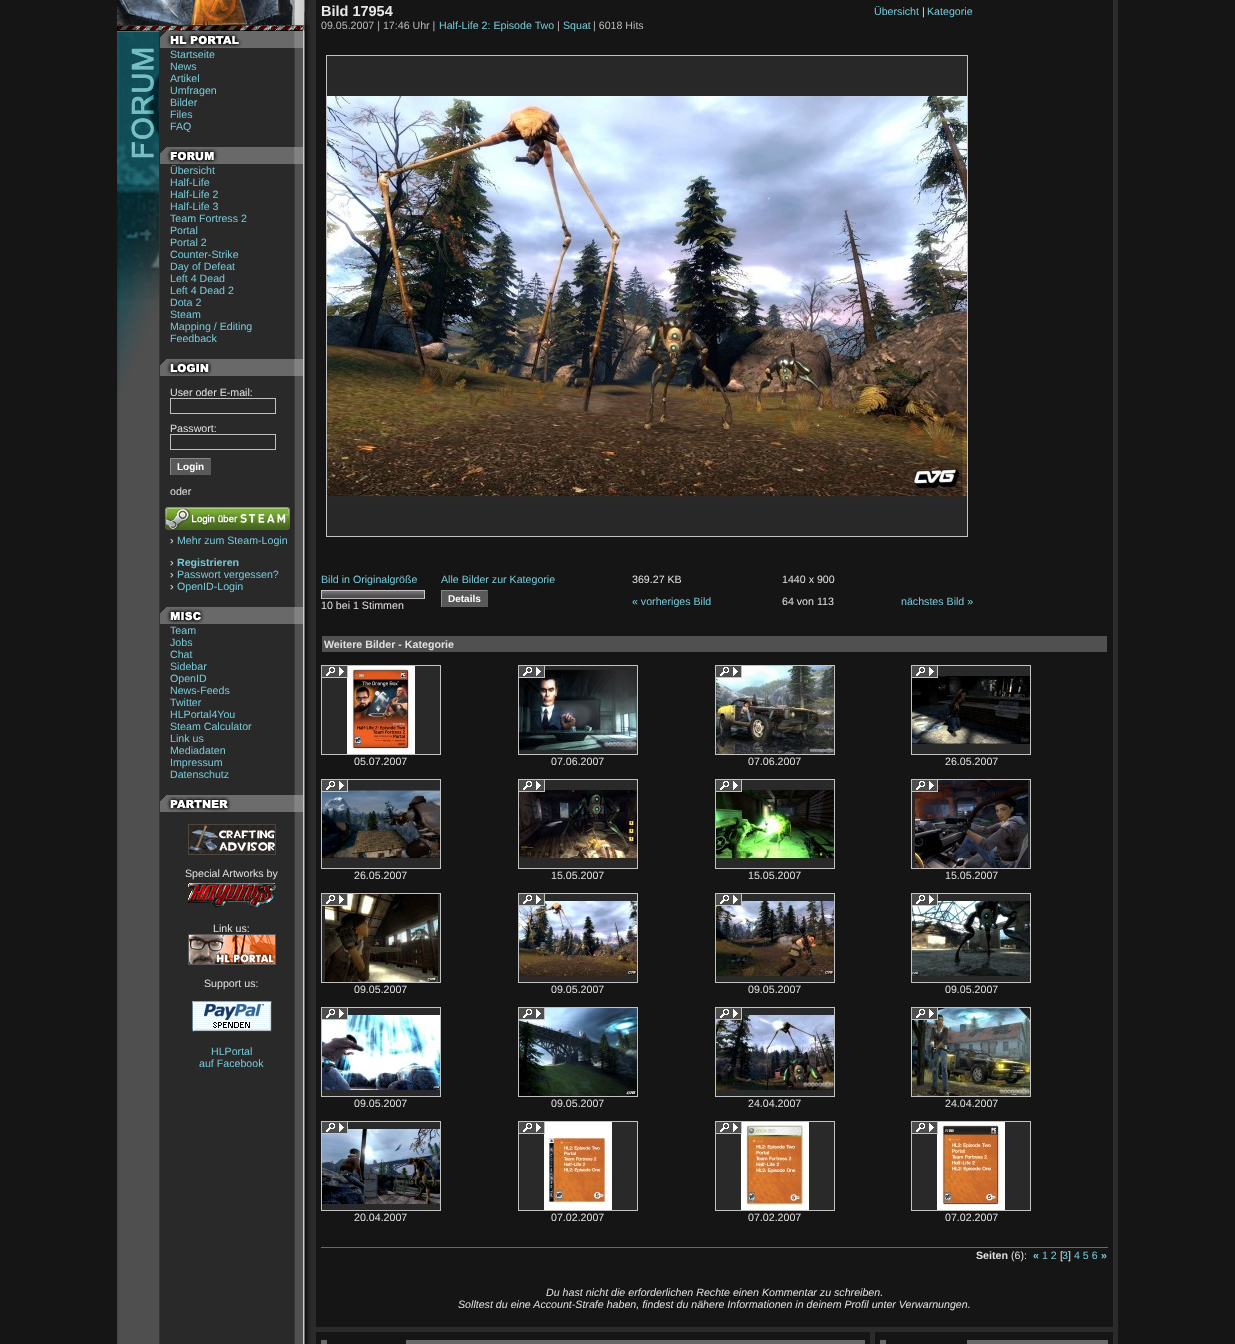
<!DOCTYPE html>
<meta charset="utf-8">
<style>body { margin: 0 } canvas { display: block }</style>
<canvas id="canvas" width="1235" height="1344"></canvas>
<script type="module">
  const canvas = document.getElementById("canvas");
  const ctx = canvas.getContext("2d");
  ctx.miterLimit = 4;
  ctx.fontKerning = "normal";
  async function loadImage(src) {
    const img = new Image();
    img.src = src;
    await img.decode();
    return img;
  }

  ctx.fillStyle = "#151515";
  ctx.fillRect(0, 0, 1235, 1344);
  ctx.drawImage(await loadImage("img1.png"), 117, 0, 199, 1327);
  ctx.drawImage(await loadImage("img2.png"), 117, 0, 193, 31);
  ctx.drawImage(await loadImage("img3.png"), 117, 31, 43, 362);
  ctx.drawImage(await loadImage("img4.png"), 160, 31, 143, 17);
  ctx.font = "10.65px Liberation Sans";
  ctx.fillStyle = "#77cad9";
  ctx.fillText("Startseite", 170, 58);
  ctx.fillText("News", 170, 70);
  ctx.fillText("Artikel", 170, 82);
  ctx.fillText("Umfragen", 170, 94);
  ctx.fillText("Bilder", 170, 106);
  ctx.fillText("Files", 170, 118);
  ctx.fillText("FAQ", 170, 130);
  ctx.drawImage(await loadImage("img5.png"), 160, 147, 143, 17);
  ctx.fillText("Übersicht", 170, 174);
  ctx.fillText("Half-Life", 170, 186);
  ctx.fillText("Half-Life 2", 170, 198);
  ctx.fillText("Half-Life 3", 170, 210);
  ctx.fillText("Team Fortress 2", 170, 222);
  ctx.fillText("Portal", 170, 234);
  ctx.fillText("Portal 2", 170, 246);
  ctx.fillText("Counter-Strike", 170, 258);
  ctx.fillText("Day of Defeat", 170, 270);
  ctx.fillText("Left 4 Dead", 170, 282);
  ctx.fillText("Left 4 Dead 2", 170, 294);
  ctx.fillText("Dota 2", 170, 306);
  ctx.fillText("Steam", 170, 318);
  ctx.fillText("Mapping / Editing", 170, 330);
  ctx.fillText("Feedback", 170, 342);
  ctx.drawImage(await loadImage("img6.png"), 160, 359, 143, 17);
  ctx.fillStyle = "#e0e0e0";
  ctx.fillText("User oder E-mail:", 170, 396);
  ctx.strokeStyle = "#c0c0c0";
  ctx.strokeRect(170.5, 398.5, 105, 15);
  ctx.fillText("Passwort:", 170, 432);
  ctx.strokeRect(170.5, 434.5, 105, 15);
  ctx.fillStyle = "#595959";
  ctx.fillRect(171, 459, 39, 15);
  ctx.fillStyle = "#898989";
  ctx.fillRect(170, 458, 41, 1);
  ctx.fillStyle = "#5b5b5b";
  ctx.fillRect(210, 458, 1, 17);
  ctx.fillRect(170, 474, 41, 1);
  ctx.fillStyle = "#898989";
  ctx.fillRect(170, 458, 1, 17);
  ctx.font = "bold 10px Liberation Sans";
  ctx.fillStyle = "#ffffff";
  ctx.fillText("Login", 177, 470);
  ctx.font = "10.65px Liberation Sans";
  ctx.fillStyle = "#e0e0e0";
  ctx.fillText("oder", 170, 495);
  ctx.drawImage(await loadImage("img7.png"), 165, 507, 125, 23);
  ctx.fillText("›", 170, 544);
  ctx.fillStyle = "#77cad9";
  ctx.fillText("Mehr zum Steam-Login", 177, 544);
  ctx.fillStyle = "#e0e0e0";
  ctx.fillText("›", 170, 566);
  ctx.font = "bold 10.65px Liberation Sans";
  ctx.fillStyle = "#77cad9";
  ctx.fillText("Registrieren", 177, 566);
  ctx.font = "10.65px Liberation Sans";
  ctx.fillStyle = "#e0e0e0";
  ctx.fillText("›", 170, 578);
  ctx.fillStyle = "#77cad9";
  ctx.fillText("Passwort vergessen?", 177, 578);
  ctx.fillStyle = "#e0e0e0";
  ctx.fillText("›", 170, 590);
  ctx.fillStyle = "#77cad9";
  ctx.fillText("OpenID-Login", 177, 590);
  ctx.drawImage(await loadImage("img8.png"), 160, 607, 143, 17);
  ctx.fillText("Team", 170, 634);
  ctx.fillText("Jobs", 170, 646);
  ctx.fillText("Chat", 170, 658);
  ctx.fillText("Sidebar", 170, 670);
  ctx.fillText("OpenID", 170, 682);
  ctx.fillText("News-Feeds", 170, 694);
  ctx.fillText("Twitter", 170, 706);
  ctx.fillText("HLPortal4You", 170, 718);
  ctx.fillText("Steam Calculator", 170, 730);
  ctx.fillText("Link us", 170, 742);
  ctx.fillText("Mediadaten", 170, 754);
  ctx.fillText("Impressum", 170, 766);
  ctx.fillText("Datenschutz", 170, 778);
  ctx.drawImage(await loadImage("img9.png"), 160, 795, 143, 17);
  ctx.drawImage(await loadImage("img10.png"), 188, 824, 88, 31);
  ctx.fillStyle = "#e0e0e0";
  ctx.fillText("Special Artworks by", 185, 877);
  ctx.drawImage(await loadImage("img11.png"), 188, 883, 88, 24);
  ctx.fillText("Link us:", 213, 932);
  ctx.drawImage(await loadImage("img12.png"), 188, 934, 88, 31);
  ctx.fillText("Support us:", 204, 987);
  ctx.drawImage(await loadImage("img13.png"), 192, 1001, 80, 31);
  ctx.fillStyle = "#77cad9";
  ctx.fillText("HLPortal", 211, 1055);
  ctx.fillText("auf Facebook", 199, 1067);
  ctx.font = "bold 14.5px Liberation Sans";
  ctx.fillStyle = "#e8e8e8";
  ctx.fillText("Bild 17954", 321, 16);
  ctx.font = "10.65px Liberation Sans";
  ctx.fillStyle = "#77cad9";
  ctx.fillText("Übersicht", 874, 15);
  ctx.fillStyle = "#e0e0e0";
  ctx.fillText("|", 922, 15);
  ctx.fillStyle = "#77cad9";
  ctx.fillText("Kategorie", 927, 15);
  ctx.fillStyle = "#b9b9b9";
  ctx.fillText("09.05.2007 | 17:46 Uhr |", 321, 29);
  ctx.fillStyle = "#77cad9";
  ctx.fillText("Half-Life 2: Episode Two", 439, 29);
  ctx.fillStyle = "#b9b9b9";
  ctx.fillText("|", 557, 29);
  ctx.fillStyle = "#77cad9";
  ctx.fillText("Squat", 563, 29);
  ctx.fillStyle = "#b9b9b9";
  ctx.fillText("| 6018 Hits", 593, 29);
  ctx.drawImage(await loadImage("img14.png"), 327, 56, 640, 480);
  ctx.strokeStyle = "#c3c3c3";
  ctx.strokeRect(326.5, 55.5, 641, 481);
  ctx.drawImage(await loadImage("img15.png"), 327, 88, 640, 416);
  ctx.fillStyle = "#77cad9";
  ctx.fillText("Bild in Originalgröße", 321, 583);
  ctx.fillText("Alle Bilder zur Kategorie", 441, 583);
  ctx.fillStyle = "#e0e0e0";
  ctx.fillText("369.27 KB", 632, 583);
  ctx.fillText("1440 x 900", 782, 583);
  ctx.drawImage(await loadImage("img16.png"), 321, 590, 2, 9);
  ctx.drawImage(await loadImage("img17.png"), 323, 590, 100, 9);
  ctx.drawImage(await loadImage("img18.png"), 423, 590, 2, 9);
  ctx.fillText("10 bei 1 Stimmen", 321, 609);
  ctx.fillStyle = "#595959";
  ctx.fillRect(442, 591, 45, 15);
  ctx.fillStyle = "#898989";
  ctx.fillRect(441, 590, 47, 1);
  ctx.fillStyle = "#5b5b5b";
  ctx.fillRect(487, 590, 1, 17);
  ctx.fillRect(441, 606, 47, 1);
  ctx.fillStyle = "#898989";
  ctx.fillRect(441, 590, 1, 17);
  ctx.font = "bold 10px Liberation Sans";
  ctx.fillStyle = "#ffffff";
  ctx.fillText("Details", 448, 602);
  ctx.font = "10.65px Liberation Sans";
  ctx.fillStyle = "#77cad9";
  ctx.fillText("« vorheriges Bild", 632, 605);
  ctx.fillStyle = "#e0e0e0";
  ctx.fillText("64 von 113", 782, 605);
  ctx.fillStyle = "#77cad9";
  ctx.fillText("nächstes Bild »", 901, 605);
  ctx.fillStyle = "#505050";
  ctx.fillRect(322, 636, 785, 16);
  ctx.font = "bold 10.65px Liberation Sans";
  ctx.fillStyle = "#e0e0e0";
  ctx.fillText("Weitere Bilder - Kategorie", 324, 648);
  ctx.drawImage(await loadImage("img19.png"), 322, 666, 118, 88);
  ctx.drawImage(await loadImage("img20.png"), 321, 665, 120, 90);
  ctx.font = "10.65px Liberation Sans";
  ctx.fillText("05.07.2007", 354, 765);
  ctx.drawImage(await loadImage("img21.png"), 519, 666, 118, 88);
  ctx.drawImage(await loadImage("img22.png"), 518, 665, 120, 90);
  ctx.fillText("07.06.2007", 551, 765);
  ctx.drawImage(await loadImage("img23.png"), 716, 666, 118, 88);
  ctx.drawImage(await loadImage("img24.png"), 715, 665, 120, 90);
  ctx.fillText("07.06.2007", 748, 765);
  ctx.drawImage(await loadImage("img25.png"), 912, 666, 118, 88);
  ctx.drawImage(await loadImage("img26.png"), 911, 665, 120, 90);
  ctx.fillText("26.05.2007", 945, 765);
  ctx.drawImage(await loadImage("img27.png"), 322, 780, 118, 88);
  ctx.drawImage(await loadImage("img28.png"), 321, 779, 120, 90);
  ctx.fillText("26.05.2007", 354, 879);
  ctx.drawImage(await loadImage("img29.png"), 519, 780, 118, 88);
  ctx.drawImage(await loadImage("img30.png"), 518, 779, 120, 90);
  ctx.fillText("15.05.2007", 551, 879);
  ctx.drawImage(await loadImage("img31.png"), 716, 780, 118, 88);
  ctx.drawImage(await loadImage("img32.png"), 715, 779, 120, 90);
  ctx.fillText("15.05.2007", 748, 879);
  ctx.drawImage(await loadImage("img33.png"), 912, 780, 118, 88);
  ctx.drawImage(await loadImage("img34.png"), 911, 779, 120, 90);
  ctx.fillText("15.05.2007", 945, 879);
  ctx.drawImage(await loadImage("img35.png"), 322, 894, 118, 88);
  ctx.drawImage(await loadImage("img36.png"), 321, 893, 120, 90);
  ctx.fillText("09.05.2007", 354, 993);
  ctx.drawImage(await loadImage("img37.png"), 519, 894, 118, 88);
  ctx.drawImage(await loadImage("img38.png"), 518, 893, 120, 90);
  ctx.fillText("09.05.2007", 551, 993);
  ctx.drawImage(await loadImage("img39.png"), 716, 894, 118, 88);
  ctx.drawImage(await loadImage("img40.png"), 715, 893, 120, 90);
  ctx.fillText("09.05.2007", 748, 993);
  ctx.drawImage(await loadImage("img41.png"), 912, 894, 118, 88);
  ctx.drawImage(await loadImage("img42.png"), 911, 893, 120, 90);
  ctx.fillText("09.05.2007", 945, 993);
  ctx.drawImage(await loadImage("img43.png"), 322, 1008, 118, 88);
  ctx.drawImage(await loadImage("img44.png"), 321, 1007, 120, 90);
  ctx.fillText("09.05.2007", 354, 1107);
  ctx.drawImage(await loadImage("img45.png"), 519, 1008, 118, 88);
  ctx.drawImage(await loadImage("img46.png"), 518, 1007, 120, 90);
  ctx.fillText("09.05.2007", 551, 1107);
  ctx.drawImage(await loadImage("img47.png"), 716, 1008, 118, 88);
  ctx.drawImage(await loadImage("img48.png"), 715, 1007, 120, 90);
  ctx.fillText("24.04.2007", 748, 1107);
  ctx.drawImage(await loadImage("img49.png"), 912, 1008, 118, 88);
  ctx.drawImage(await loadImage("img50.png"), 911, 1007, 120, 90);
  ctx.fillText("24.04.2007", 945, 1107);
  ctx.drawImage(await loadImage("img51.png"), 322, 1122, 118, 88);
  ctx.drawImage(await loadImage("img52.png"), 321, 1121, 120, 90);
  ctx.fillText("20.04.2007", 354, 1221);
  ctx.drawImage(await loadImage("img53.png"), 519, 1122, 118, 88);
  ctx.drawImage(await loadImage("img54.png"), 518, 1121, 120, 90);
  ctx.fillText("07.02.2007", 551, 1221);
  ctx.drawImage(await loadImage("img55.png"), 716, 1122, 118, 88);
  ctx.drawImage(await loadImage("img56.png"), 715, 1121, 120, 90);
  ctx.fillText("07.02.2007", 748, 1221);
  ctx.drawImage(await loadImage("img57.png"), 912, 1122, 118, 88);
  ctx.drawImage(await loadImage("img58.png"), 911, 1121, 120, 90);
  ctx.fillText("07.02.2007", 945, 1221);
  ctx.fillStyle = "#696969";
  ctx.fillRect(321, 1247, 787, 1);
  ctx.font = "bold 10.65px Liberation Sans";
  ctx.fillStyle = "#e0e0e0";
  ctx.fillText("Seiten", 976, 1259);
  ctx.font = "10.65px Liberation Sans";
  ctx.fillText("(6):", 1011, 1259);
  ctx.font = "bold 10.65px Liberation Sans";
  ctx.fillStyle = "#77cad9";
  ctx.fillText("«", 1033, 1259);
  ctx.font = "10.65px Liberation Sans";
  ctx.fillText("1 2", 1042, 1259);
  ctx.fillStyle = "#e0e0e0";
  ctx.fillText("[", 1060, 1259);
  ctx.fillStyle = "#77cad9";
  ctx.fillText("3", 1062, 1259);
  ctx.fillStyle = "#e0e0e0";
  ctx.fillText("]", 1068, 1259);
  ctx.fillStyle = "#77cad9";
  ctx.fillText("4 5 6", 1074, 1259);
  ctx.font = "bold 10.65px Liberation Sans";
  ctx.fillText("»", 1101, 1259);
  ctx.font = "italic 10.65px Liberation Sans";
  ctx.fillStyle = "#e0e0e0";
  ctx.fillText("Du hast nicht die erforderlichen Rechte einen Kommentar zu schreiben.", 546, 1296);
  ctx.fillText("Solltest du eine Account-Strafe haben, findest du nähere Informationen in deinem Profil unter Verwarnungen.", 458, 1308);
  ctx.fillStyle = "#2b2b2b";
  ctx.fillRect(1113, 0, 5, 1344);
  ctx.drawImage(await loadImage("img59.png"), 117, 1327, 199, 17);
  ctx.fillRect(316, 1327, 797, 5);
  ctx.fillStyle = "#696969";
  ctx.fillRect(321, 1340, 6, 4);
  ctx.fillRect(406, 1340, 459, 4);
  ctx.fillStyle = "#2b2b2b";
  ctx.fillRect(870, 1332, 5, 12);
  ctx.fillStyle = "#696969";
  ctx.fillRect(880, 1340, 6, 4);
  ctx.fillRect(967, 1340, 141, 4);
</script>
